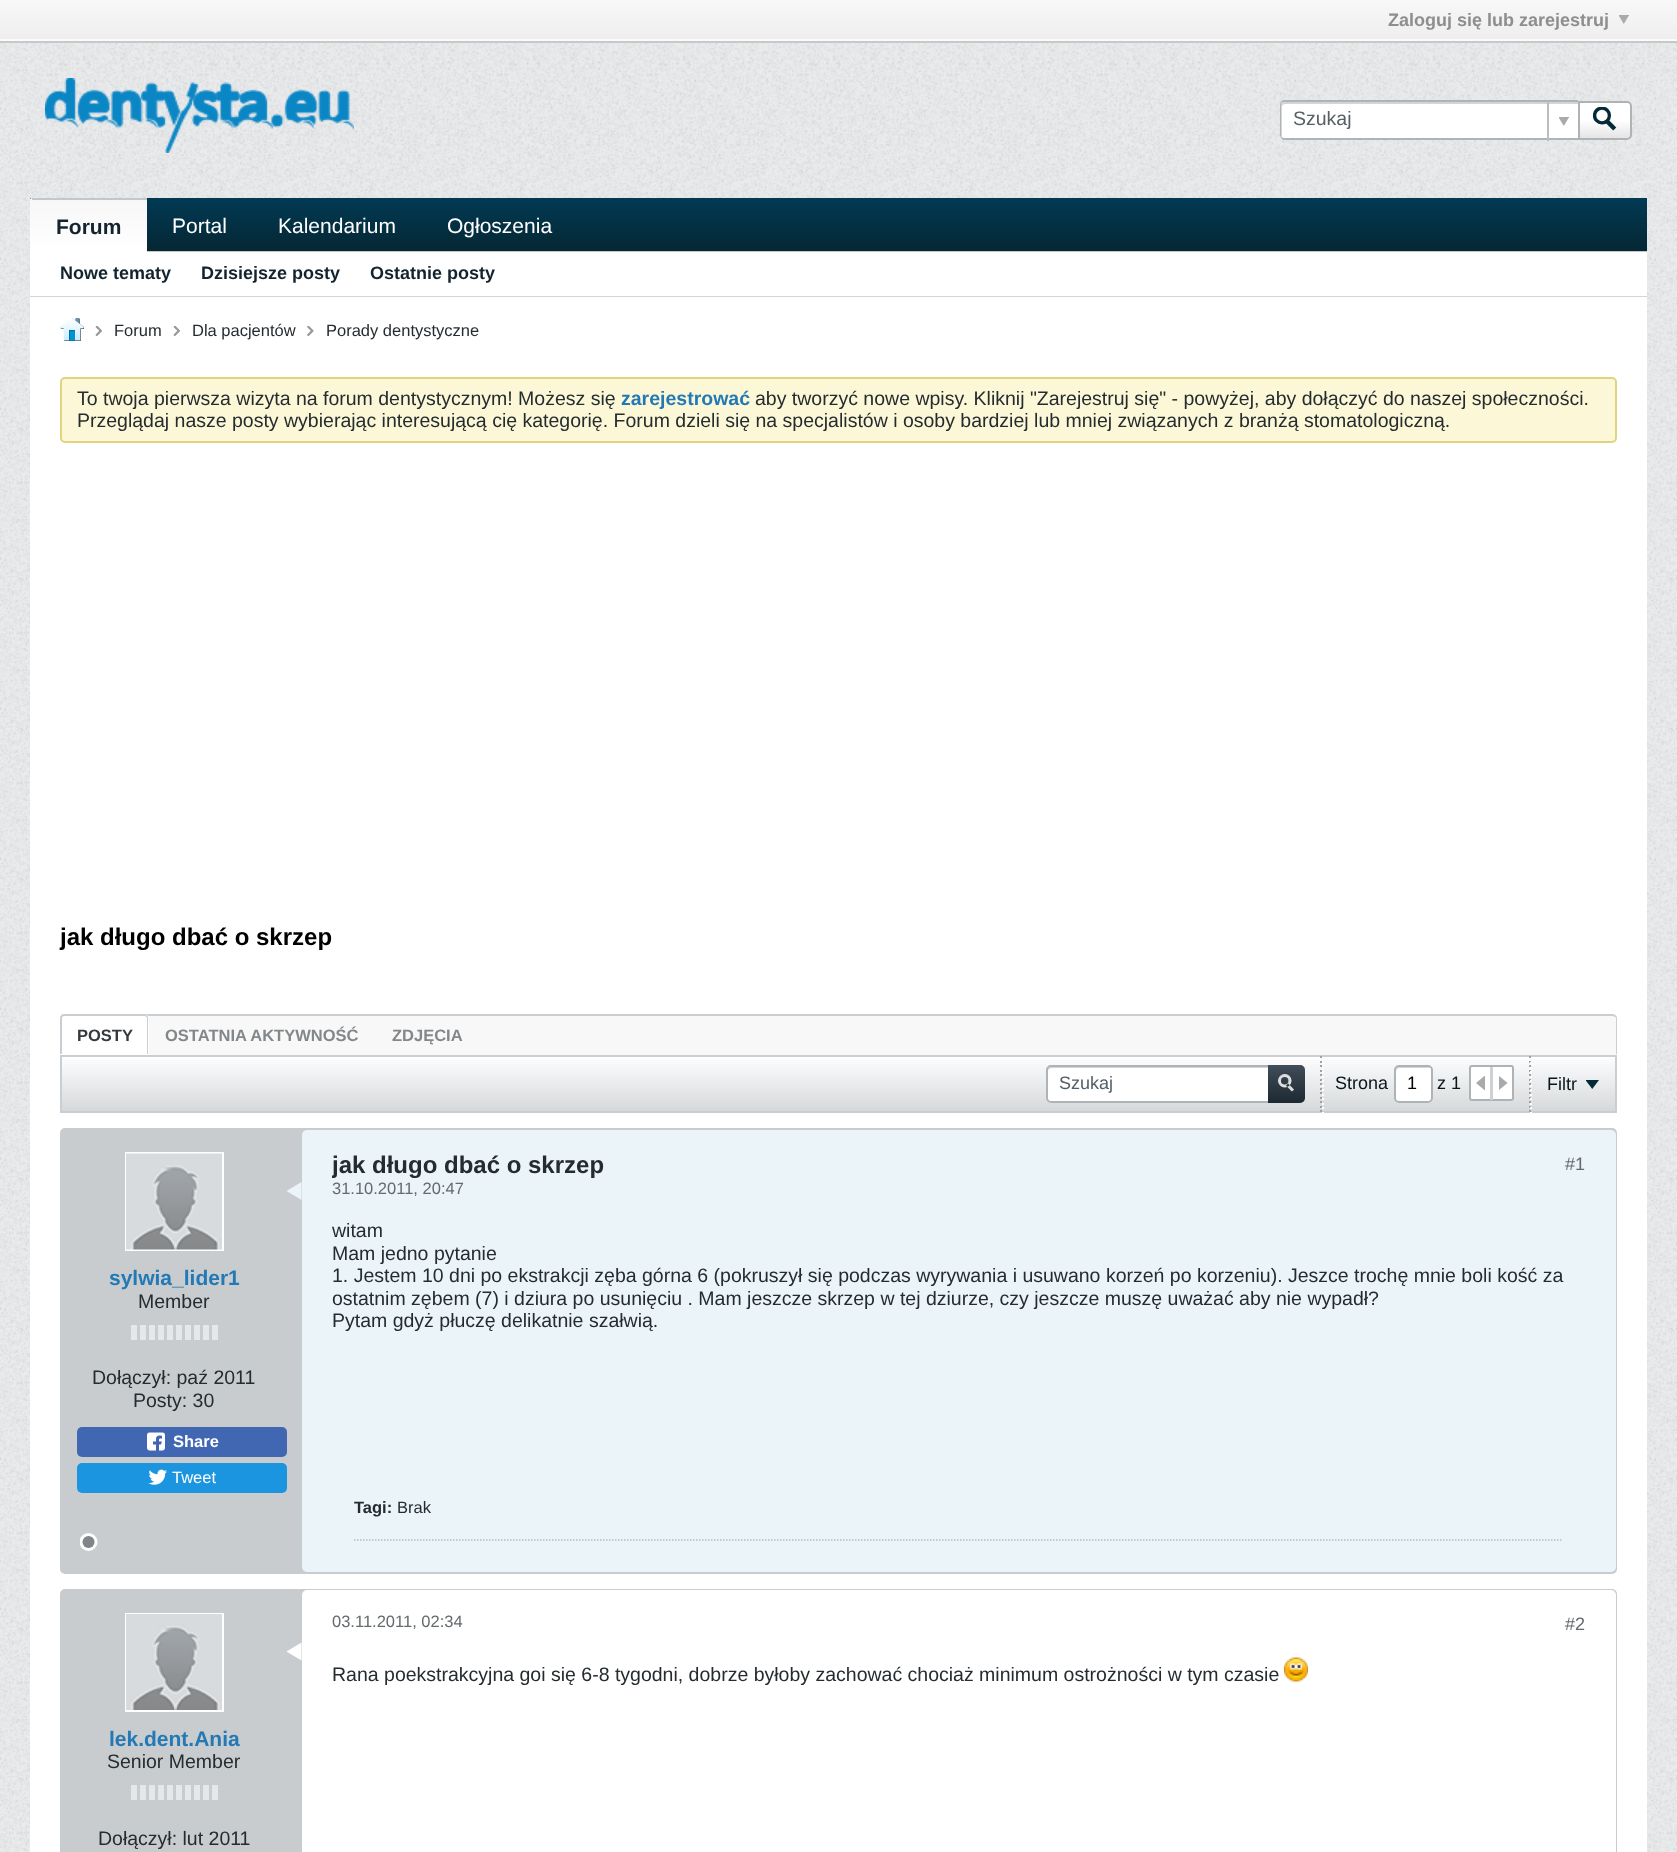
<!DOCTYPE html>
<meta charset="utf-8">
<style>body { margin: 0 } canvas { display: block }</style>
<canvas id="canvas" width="1677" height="1852"></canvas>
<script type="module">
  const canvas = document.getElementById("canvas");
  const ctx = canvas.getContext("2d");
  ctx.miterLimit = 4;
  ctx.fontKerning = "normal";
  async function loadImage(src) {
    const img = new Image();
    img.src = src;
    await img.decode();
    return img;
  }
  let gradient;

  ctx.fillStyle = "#eaebec";
  ctx.fillRect(0, 0, 1677, 1852);
  ctx.drawImage(await loadImage("img1.png"), 0, 43, 1677, 1809);
  gradient = ctx.createLinearGradient(839, 0, 839, 42);
  gradient.addColorStop(0, "#f8f8f8");
  gradient.addColorStop(1, "#efedee");
  ctx.fillStyle = gradient;
  ctx.fillRect(0, 0, 1677, 39);
  ctx.font = "bold 18px Liberation Sans";
  ctx.fillStyle = "#8e8e8e";
  ctx.fillText("Zaloguj się lub zarejestruj", 1388, 26);
  ctx.drawImage(await loadImage("img2.png"), 1619, 15, 10, 9);
  ctx.fillStyle = "#fafafa";
  ctx.fillRect(0, 39, 1677, 2);
  ctx.fillStyle = "#c7c8c9";
  ctx.fillRect(0, 41, 1677, 2);
  ctx.fillStyle = "#eaebec";
  ctx.fillRect(30, 43, 1617, 155);
  ctx.drawImage(await loadImage("img3.png"), 30, 43, 1617, 155);
  ctx.drawImage(await loadImage("img4.png"), 45, 78, 309, 75);
  ctx.fillStyle = "#ffffff";
  ctx.beginPath();
  ctx.roundRect(1280, 101, 298, 39, [5, 0, 0, 5]);
  ctx.fill();
  ctx.fillStyle = "#d5d5d5";
  ctx.beginPath();
  ctx.moveTo(1286, 104);
  ctx.lineTo(1578, 104);
  ctx.lineTo(1578, 102);
  ctx.lineTo(1284, 102);
  ctx.bezierCurveTo(1282, 102, 1281, 103, 1281, 105);
  ctx.lineTo(1281, 135);
  ctx.bezierCurveTo(1281, 136, 1282, 137, 1282, 138);
  ctx.lineTo(1282, 111);
  ctx.bezierCurveTo(1282, 107, 1281, 104, 1286, 104);
  ctx.closePath();
  ctx.fill();
  ctx.fillStyle = "#aeb3b6";
  ctx.beginPath();
  ctx.moveTo(1284, 100);
  ctx.lineTo(1578, 100);
  ctx.lineTo(1578, 140);
  ctx.lineTo(1284, 140);
  ctx.bezierCurveTo(1282, 140, 1280, 137, 1280, 135);
  ctx.lineTo(1280, 105);
  ctx.bezierCurveTo(1280, 103, 1282, 100, 1284, 100);
  ctx.closePath();
  ctx.moveTo(1284, 102);
  ctx.lineTo(1578, 102);
  ctx.lineTo(1578, 138);
  ctx.lineTo(1284, 138);
  ctx.bezierCurveTo(1282, 138, 1281, 137, 1281, 135);
  ctx.lineTo(1281, 105);
  ctx.bezierCurveTo(1281, 103, 1282, 102, 1284, 102);
  ctx.closePath();
  ctx.fill("evenodd");
  ctx.font = "19.5px Liberation Sans";
  ctx.fillStyle = "#556065";
  ctx.fillText("Szukaj", 1293, 125);
  ctx.fillStyle = "#bdbdbd";
  ctx.fillRect(1547, 101, 2, 40);
  ctx.drawImage(await loadImage("img5.png"), 1559, 117, 10, 9);
  ctx.fillStyle = "#ffffff";
  ctx.beginPath();
  ctx.roundRect(1578, 101, 54, 39, [0, 5, 5, 0]);
  ctx.fill();
  ctx.save();
  ctx.beginPath();
  ctx.roundRect(1578, 101, 54, 39, [0, 5, 5, 0]);
  ctx.clip();
  gradient = ctx.createLinearGradient(1605, 138, 1605, 102);
  gradient.addColorStop(0, "rgba(0, 0, 0, 0.1)");
  gradient.addColorStop(0.5, "rgba(0, 0, 0, 0)");
  gradient.addColorStop(0.5, "rgba(255, 255, 255, 0)");
  gradient.addColorStop(1, "rgba(255, 255, 255, 0.7)");
  ctx.fillStyle = gradient;
  ctx.fillRect(1580, 102, 52, 36);
  ctx.restore();
  ctx.beginPath();
  ctx.roundRect(1579, 102, 52, 37, [0, 4, 4, 0]);
  ctx.strokeStyle = "#aeb3b6";
  ctx.lineWidth = 2;
  ctx.stroke();
  ctx.drawImage(await loadImage("img6.png"), 1593, 107, 24, 24);
  gradient = ctx.createLinearGradient(839, 198, 839, 251);
  gradient.addColorStop(0, "#013a54");
  gradient.addColorStop(1, "#052733");
  ctx.fillStyle = gradient;
  ctx.fillRect(30, 198, 1617, 53);
  ctx.fillStyle = "#c4c7c8";
  ctx.fillRect(147, 251, 1500, 1);
  gradient = ctx.createLinearGradient(89, 147, 89, 200);
  gradient.addColorStop(0, "#f7f7f7");
  gradient.addColorStop(1, "#ffffff");
  ctx.fillStyle = gradient;
  ctx.beginPath();
  ctx.roundRect(30, 198, 117, 2, [1.5, 1.5, 0, 0]);
  ctx.fill();
  gradient = ctx.createLinearGradient(89, 200, 89, 252);
  gradient.addColorStop(0, "#f7f7f7");
  gradient.addColorStop(1, "#ffffff");
  ctx.fillStyle = gradient;
  ctx.fillRect(30, 200, 117, 52);
  ctx.fillStyle = "#c4c7c8";
  ctx.fillRect(32, 198, 115, 2);
  ctx.font = "bold 21px Liberation Sans";
  ctx.fillStyle = "#13242f";
  ctx.fillText("Forum", 56, 234);
  ctx.font = "21px Liberation Sans";
  ctx.fillStyle = "#ffffff";
  ctx.fillText("Portal", 172, 233);
  ctx.fillText("Kalendarium", 278, 233);
  ctx.fillText("Ogłoszenia", 447, 233);
  ctx.fillRect(30, 252, 1617, 44);
  ctx.fillStyle = "#d3d5d6";
  ctx.fillRect(30, 296, 1617, 1);
  ctx.font = "bold 18px Liberation Sans";
  ctx.fillStyle = "#13242f";
  ctx.fillText("Nowe tematy", 60, 279);
  ctx.fillText("Dzisiejsze posty", 201, 279);
  ctx.fillText("Ostatnie posty", 370, 279);
  ctx.fillStyle = "#ffffff";
  ctx.fillRect(30, 297, 1617, 1555);
  ctx.drawImage(await loadImage("img7.png"), 60, 318, 24, 23);
  ctx.drawImage(await loadImage("img8.png"), 95, 326, 7, 10);
  ctx.font = "16.5px Liberation Sans";
  ctx.fillStyle = "#252c2f";
  ctx.fillText("Forum", 114, 336);
  ctx.drawImage(await loadImage("img8.png"), 173, 326, 7, 10);
  ctx.fillText("Dla pacjentów", 192, 336);
  ctx.drawImage(await loadImage("img9.png"), 307, 326, 7, 10);
  ctx.fillText("Porady dentystyczne", 326, 336);
  ctx.fillStyle = "#fcf7d7";
  ctx.beginPath();
  ctx.roundRect(61, 378, 1555, 64, 4);
  ctx.fill();
  ctx.strokeStyle = "#e1d47e";
  ctx.stroke();
  ctx.font = "19.5px Liberation Sans";
  ctx.fillStyle = "#252c2f";
  ctx.fillText("To twoja pierwsza wizyta na forum dentystycznym! Możesz się", 77, 405);
  ctx.font = "bold 19.5px Liberation Sans";
  ctx.fillStyle = "#2379b5";
  ctx.fillText("zarejestrować", 621, 405);
  ctx.font = "19.5px Liberation Sans";
  ctx.fillStyle = "#252c2f";
  ctx.fillText("aby tworzyć nowe wpisy. Kliknij \"Zarejestruj się\" - powyżej, aby dołączyć do naszej społeczności.", 755, 405);
  ctx.fillText("Przeglądaj nasze posty wybierając interesującą cię kategorię. Forum dzieli się na specjalistów i osoby bardziej lub mniej związanych z branżą stomatologiczną.", 77, 427);
  ctx.font = "bold 24px Liberation Sans";
  ctx.fillStyle = "#000000";
  ctx.fillText("jak długo dbać o skrzep", 60, 945);
  ctx.fillStyle = "#f8f8f8";
  ctx.beginPath();
  ctx.roundRect(60, 1014, 1557, 41, [5, 5, 0, 0]);
  ctx.fill();
  ctx.fillStyle = "#c9ced2";
  ctx.beginPath();
  ctx.moveTo(64, 1014);
  ctx.lineTo(1612, 1014);
  ctx.bezierCurveTo(1615, 1014, 1617, 1016, 1617, 1018);
  ctx.lineTo(1617, 1054);
  ctx.lineTo(60, 1054);
  ctx.lineTo(60, 1018);
  ctx.bezierCurveTo(60, 1016, 62, 1014, 64, 1014);
  ctx.closePath();
  ctx.moveTo(64, 1016);
  ctx.lineTo(1612, 1016);
  ctx.bezierCurveTo(1614, 1016, 1616, 1017, 1616, 1018);
  ctx.lineTo(1616, 1054);
  ctx.lineTo(62, 1054);
  ctx.lineTo(62, 1018);
  ctx.bezierCurveTo(62, 1017, 63, 1016, 64, 1016);
  ctx.closePath();
  ctx.fill("evenodd");
  ctx.fillStyle = "#ffffff";
  ctx.beginPath();
  ctx.roundRect(60, 1014, 89, 41, [5, 5, 0, 0]);
  ctx.fill();
  ctx.fillStyle = "#c9ced2";
  ctx.beginPath();
  ctx.moveTo(64, 1014);
  ctx.lineTo(144, 1014);
  ctx.bezierCurveTo(146, 1014, 148, 1016, 148, 1018);
  ctx.lineTo(148, 1054);
  ctx.lineTo(60, 1054);
  ctx.lineTo(60, 1018);
  ctx.bezierCurveTo(60, 1016, 62, 1014, 64, 1014);
  ctx.closePath();
  ctx.moveTo(64, 1016);
  ctx.lineTo(144, 1016);
  ctx.bezierCurveTo(146, 1016, 147, 1017, 147, 1018);
  ctx.lineTo(147, 1054);
  ctx.lineTo(62, 1054);
  ctx.lineTo(62, 1018);
  ctx.bezierCurveTo(62, 1017, 63, 1016, 64, 1016);
  ctx.closePath();
  ctx.fill("evenodd");
  ctx.font = "bold 16.5px Liberation Sans";
  ctx.fillStyle = "#343a3d";
  ctx.fillText("POSTY", 77, 1041);
  ctx.fillStyle = "#838789";
  ctx.fillText("OSTATNIA AKTYWNOŚĆ", 165, 1041);
  ctx.fillText("ZDJĘCIA", 392, 1041);
  gradient = ctx.createLinearGradient(839, 1056, 839, 1112);
  gradient.addColorStop(0, "#fefeff");
  gradient.addColorStop(1, "#d5d8da");
  ctx.fillStyle = gradient;
  ctx.fillRect(62, 1058, 1553, 53);
  ctx.strokeStyle = "#c9ced2";
  ctx.strokeRect(61, 1056, 1555, 56);
  ctx.fillStyle = "#ffffff";
  ctx.beginPath();
  ctx.roundRect(1046, 1065, 259, 38, 5);
  ctx.fill();
  ctx.fillStyle = "#d5d5d5";
  ctx.beginPath();
  ctx.moveTo(1052, 1068);
  ctx.lineTo(1303, 1068);
  ctx.bezierCurveTo(1303, 1067, 1302, 1067, 1301, 1067);
  ctx.lineTo(1050, 1067);
  ctx.bezierCurveTo(1048, 1067, 1047, 1068, 1047, 1070);
  ctx.lineTo(1047, 1098);
  ctx.bezierCurveTo(1047, 1099, 1047, 1100, 1048, 1100);
  ctx.lineTo(1048, 1076);
  ctx.bezierCurveTo(1048, 1072, 1047, 1068, 1052, 1068);
  ctx.closePath();
  ctx.fill();
  ctx.beginPath();
  ctx.roundRect(1047, 1066, 257, 36, 4);
  ctx.strokeStyle = "#aeb3b6";
  ctx.stroke();
  ctx.font = "18px Liberation Sans";
  ctx.fillStyle = "#556065";
  ctx.fillText("Szukaj", 1059, 1089);
  gradient = ctx.createLinearGradient(1286, 1065, 1286, 1103);
  gradient.addColorStop(0, "#404d5a");
  gradient.addColorStop(1, "#1c2931");
  ctx.fillStyle = gradient;
  ctx.beginPath();
  ctx.roundRect(1268, 1065, 37, 38, [0, 5, 5, 0]);
  ctx.fill();
  ctx.drawImage(await loadImage("img10.png"), 1278, 1074, 16, 18);
  ctx.drawImage(await loadImage("img11.png"), 1320, 1056, 2, 56);
  ctx.drawImage(await loadImage("img12.png"), 1322, 1062, 2, 51);
  ctx.fillStyle = "#09161b";
  ctx.fillText("Strona", 1335, 1089);
  ctx.fillStyle = "#ffffff";
  ctx.beginPath();
  ctx.roundRect(1394, 1065, 39, 38, 5);
  ctx.fill();
  ctx.fillStyle = "#d5d5d5";
  ctx.beginPath();
  ctx.moveTo(1400, 1068);
  ctx.lineTo(1430.5, 1068);
  ctx.bezierCurveTo(1429.5, 1067.5, 1429, 1067, 1428, 1067);
  ctx.lineTo(1398, 1067);
  ctx.bezierCurveTo(1396.5, 1067, 1395, 1068.5, 1395, 1070);
  ctx.lineTo(1395, 1098);
  ctx.bezierCurveTo(1395, 1099, 1395.5, 1099.5, 1396, 1100.5);
  ctx.lineTo(1396, 1076);
  ctx.bezierCurveTo(1396, 1072, 1395, 1068, 1400, 1068);
  ctx.closePath();
  ctx.fill();
  ctx.beginPath();
  ctx.roundRect(1395, 1066, 37, 36, 4);
  ctx.stroke();
  ctx.fillStyle = "#000000";
  ctx.fillText("1", 1407, 1089);
  ctx.fillStyle = "#09161b";
  ctx.fillText("z 1", 1437, 1089);
  ctx.fillStyle = "#ffffff";
  ctx.beginPath();
  ctx.roundRect(1470, 1066, 43, 34, 2);
  ctx.fill();
  ctx.stroke();
  ctx.fillStyle = "#cdd1d4";
  ctx.fillRect(1490, 1067, 3, 33);
  ctx.drawImage(await loadImage("img13.png"), 1476, 1076, 9, 15);
  ctx.drawImage(await loadImage("img14.png"), 1499, 1076, 9, 14);
  ctx.drawImage(await loadImage("img11.png"), 1529, 1056, 2, 56);
  ctx.drawImage(await loadImage("img15.png"), 1530, 1062, 2, 51);
  ctx.fillStyle = "#09161b";
  ctx.fillText("Filtr", 1547, 1090);
  ctx.drawImage(await loadImage("img16.png"), 1586, 1080, 13, 9);
  ctx.fillStyle = "#c8ccce";
  ctx.beginPath();
  ctx.roundRect(61, 1129, 1555, 444, 4);
  ctx.fill();
  ctx.strokeStyle = "#c8ccce";
  ctx.stroke();
  ctx.strokeStyle = "#ffffff";
  ctx.strokeRect(126, 1153, 97, 97);
  ctx.drawImage(await loadImage("img17.png"), 126, 1153, 96, 97);
  ctx.font = "bold 21px Liberation Sans";
  ctx.fillStyle = "#2379b5";
  ctx.fillText("sylwia_lider1", 109, 1285);
  ctx.font = "19.5px Liberation Sans";
  ctx.fillStyle = "#252c2f";
  ctx.fillText("Member", 138, 1308);
  ctx.fillStyle = "#e5e8e9";
  ctx.fillRect(131, 1325, 6, 15);
  ctx.fillRect(140, 1325, 6, 15);
  ctx.fillRect(149, 1325, 6, 15);
  ctx.fillRect(158, 1325, 6, 15);
  ctx.fillRect(167, 1325, 6, 15);
  ctx.fillRect(176, 1325, 6, 15);
  ctx.fillRect(185, 1325, 6, 15);
  ctx.fillRect(194, 1325, 6, 15);
  ctx.fillRect(203, 1325, 6, 15);
  ctx.fillRect(212, 1325, 6, 15);
  ctx.fillStyle = "#252c2f";
  ctx.fillText("Dołączył: paź 2011", 92, 1384);
  ctx.fillText("Posty: 30", 133, 1407);
  ctx.drawImage(await loadImage("img18.png"), 80, 1533, 18, 18);
  ctx.fillStyle = "#4267b2";
  ctx.beginPath();
  ctx.roundRect(77, 1427, 210, 30, 5);
  ctx.fill();
  ctx.drawImage(await loadImage("img19.png"), 147, 1432, 18, 19);
  ctx.font = "bold 16.5px Liberation Sans";
  ctx.fillStyle = "#ffffff";
  ctx.fillText("Share", 173, 1447);
  ctx.fillStyle = "#1b95e0";
  ctx.beginPath();
  ctx.roundRect(77, 1463, 210, 30, 5);
  ctx.fill();
  ctx.drawImage(await loadImage("img20.png"), 148, 1469, 19, 16);
  ctx.font = "16.5px Liberation Sans";
  ctx.fillStyle = "#ffffff";
  ctx.fillText("Tweet", 172, 1483);
  ctx.fillStyle = "#ebf4f9";
  ctx.beginPath();
  ctx.roundRect(302, 1130, 1314, 442, 5);
  ctx.fill();
  ctx.beginPath();
  ctx.moveTo(301.5, 1182);
  ctx.lineTo(301.5, 1200);
  ctx.lineTo(286.5, 1191);
  ctx.closePath();
  ctx.fill();
  ctx.save();
  ctx.beginPath();
  ctx.rect(332, 1152, 1234, 45);
  ctx.clip();
  ctx.font = "bold 24px Liberation Sans";
  ctx.fillStyle = "#252c2f";
  ctx.fillText("jak długo dbać o skrzep", 332, 1173);
  ctx.restore();
  ctx.fillStyle = "#656a6d";
  ctx.fillText("31.10.2011, 20:47", 332, 1194);
  ctx.font = "18px Liberation Sans";
  ctx.fillText("#1", 1565, 1170);
  ctx.font = "19.5px Liberation Sans";
  ctx.fillStyle = "#252c2f";
  ctx.fillText("witam", 332, 1237);
  ctx.fillText("Mam jedno pytanie", 332, 1260);
  ctx.fillText("1. Jestem 10 dni po ekstrakcji zęba górna 6 (pokruszył się podczas wyrywania i usuwano korzeń po korzeniu). Jeszce trochę mnie boli kość za", 332, 1282);
  ctx.fillText("ostatnim zębem (7) i dziura po usunięciu . Mam jeszcze skrzep w tej dziurze, czy jeszcze muszę uważać aby nie wypadł?", 332, 1305);
  ctx.fillText("Pytam gdyż płuczę delikatnie szałwią.", 332, 1327);
  ctx.font = "bold 16.5px Liberation Sans";
  ctx.fillText("Tagi:", 354, 1513);
  ctx.font = "16.5px Liberation Sans";
  ctx.fillText("Brak", 397, 1513);
  ctx.beginPath();
  ctx.moveTo(354, 1540);
  ctx.lineTo(1563, 1540);
  ctx.strokeStyle = "#b7bcbe";
  ctx.lineWidth = 1.5;
  ctx.setLineDash([1.5, 1.5]);
  ctx.stroke();
  ctx.fillStyle = "#c8ccce";
  ctx.beginPath();
  ctx.roundRect(61, 1590, 1555, 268, 4);
  ctx.fill();
  ctx.strokeStyle = "#c8ccce";
  ctx.lineWidth = 2;
  ctx.setLineDash([]);
  ctx.stroke();
  ctx.fillStyle = "#ffffff";
  ctx.beginPath();
  ctx.roundRect(302, 1590, 1314, 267, 5);
  ctx.fill();
  ctx.beginPath();
  ctx.moveTo(301.5, 1642.5);
  ctx.lineTo(301.5, 1660.5);
  ctx.lineTo(286.5, 1651.5);
  ctx.closePath();
  ctx.fill();
  ctx.fillStyle = "#656a6d";
  ctx.fillText("03.11.2011, 02:34", 332, 1627);
  ctx.font = "18px Liberation Sans";
  ctx.fillText("#2", 1565, 1630);
  ctx.font = "19.5px Liberation Sans";
  ctx.fillStyle = "#252c2f";
  ctx.fillText("Rana poekstrakcyjna goi się 6-8 tygodni, dobrze byłoby zachować chociaż minimum ostrożności w tym czasie", 332, 1681);
  ctx.drawImage(await loadImage("img21.png"), 1284, 1657, 24, 25);
  ctx.strokeStyle = "#ffffff";
  ctx.strokeRect(126, 1614, 97, 97);
  ctx.drawImage(await loadImage("img22.png"), 126, 1614, 96, 96);
  ctx.font = "bold 21px Liberation Sans";
  ctx.fillStyle = "#2379b5";
  ctx.fillText("lek.dent.Ania", 109, 1746);
  ctx.font = "19.5px Liberation Sans";
  ctx.fillStyle = "#252c2f";
  ctx.fillText("Senior Member", 107, 1768);
  ctx.fillStyle = "#e5e8e9";
  ctx.fillRect(131, 1785, 6, 15);
  ctx.fillRect(140, 1785, 6, 15);
  ctx.fillRect(149, 1785, 6, 15);
  ctx.fillRect(158, 1785, 6, 15);
  ctx.fillRect(167, 1785, 6, 15);
  ctx.fillRect(176, 1785, 6, 15);
  ctx.fillRect(185, 1785, 6, 15);
  ctx.fillRect(194, 1785, 6, 15);
  ctx.fillRect(203, 1785, 6, 15);
  ctx.fillRect(212, 1785, 6, 15);
  ctx.fillStyle = "#252c2f";
  ctx.fillText("Dołączył: lut 2011", 98, 1845);
</script>
